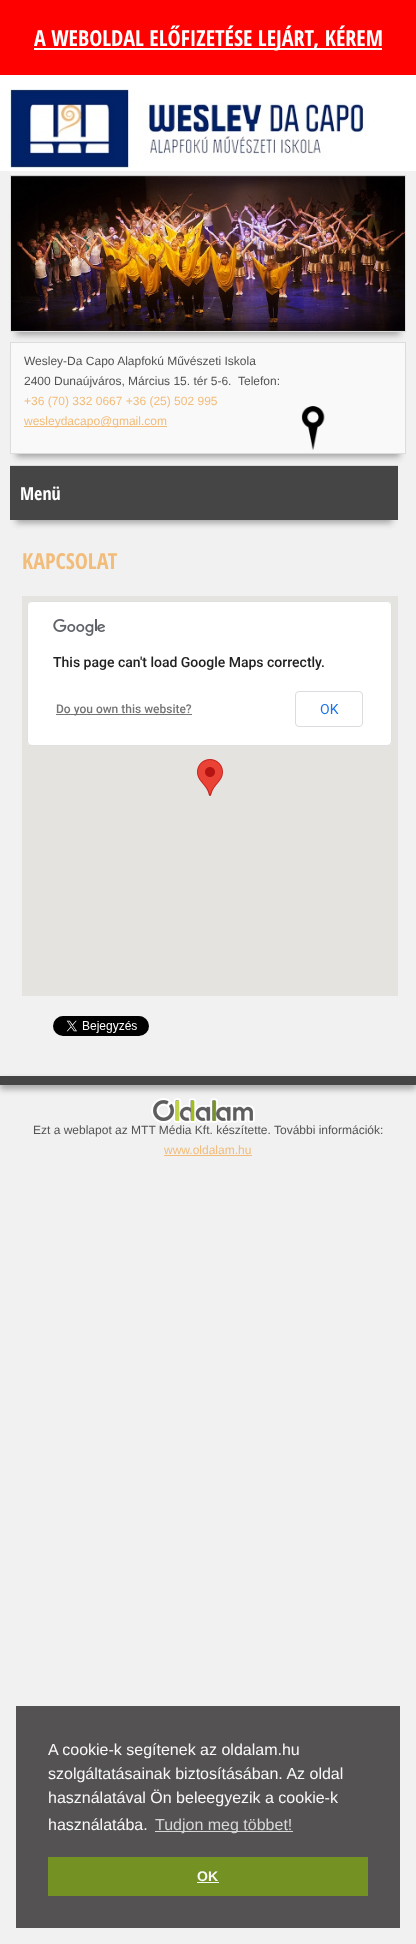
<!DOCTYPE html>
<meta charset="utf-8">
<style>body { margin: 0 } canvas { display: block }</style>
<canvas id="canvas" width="416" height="1944"></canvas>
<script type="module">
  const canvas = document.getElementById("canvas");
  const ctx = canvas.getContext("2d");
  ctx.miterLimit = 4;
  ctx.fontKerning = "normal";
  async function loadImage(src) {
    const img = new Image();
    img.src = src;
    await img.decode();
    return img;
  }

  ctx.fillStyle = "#f1f1f1";
  ctx.fillRect(0, 0, 416, 1944);
  ctx.fillStyle = "#ff0000";
  ctx.fillRect(0, 0, 416, 75);
  ctx.fillStyle = "#ffffff";
  ctx.fillRect(34, 48, 348, 2);
  ctx.font = "bold 22px Open Sans Condensed";
  ctx.fillText("A WEBOLDAL ELŐFIZETÉSE LEJÁRT, KÉREM", 34, 46);
  ctx.fillRect(0, 75, 416, 96);
  ctx.drawImage(await loadImage("img1.png"), 10, 89, 359, 79);
  ctx.fillStyle = "#a3a2a2";
  ctx.filter = "blur(3px)";
  ctx.beginPath();
  ctx.rect(16, 190, 384, 145);
  ctx.fill();
  ctx.filter = "none";
  ctx.strokeStyle = "#dcdcdc";
  ctx.strokeRect(10.5, 175.5, 395, 156);
  ctx.drawImage(await loadImage("img2.png"), 11, 175, 394, 156);
  ctx.filter = "blur(3px)";
  ctx.beginPath();
  ctx.rect(16, 480, 376, 43);
  ctx.fill();
  ctx.filter = "none";
  ctx.fillStyle = "#454545";
  ctx.fillRect(10, 466, 388, 54);
  ctx.fillStyle = "#dcdcdc";
  ctx.fillRect(10, 465, 388, 1);
  ctx.fillStyle = "#a3a2a2";
  ctx.filter = "blur(3px)";
  ctx.beginPath();
  ctx.rect(16, 357, 384, 100);
  ctx.fill();
  ctx.filter = "none";
  ctx.strokeRect(10.5, 342.5, 395, 111);
  ctx.fillStyle = "#f9f9f9";
  ctx.fillRect(11, 343, 394, 110);
  ctx.font = "12px Liberation Sans";
  ctx.fillStyle = "#545253";
  ctx.fillText("Wesley-Da Capo Alapfokú Művészeti Iskola", 24, 365);
  ctx.fillText("2400 Dunaújváros, Március 15. tér 5-6.", 24, 385);
  ctx.fillText("Telefon:", 238, 385);
  ctx.fillStyle = "#f2bc7a";
  ctx.fillText("+36 (70) 332 0667 +36 (25) 502 995", 24, 405);
  ctx.fillRect(24, 426, 143, 1);
  ctx.fillText("wesleydacapo@gmail.com", 24, 425);
  ctx.drawImage(await loadImage("img3.png"), 301, 406, 24, 44);
  ctx.font = "bold 18px Open Sans Condensed";
  ctx.fillStyle = "#ffffff";
  ctx.fillText("Menü", 20, 500);
  ctx.font = "bold 22px Open Sans Condensed";
  ctx.fillStyle = "#f2bc7a";
  ctx.fillText("KAPCSOLAT", 22, 569);
  ctx.fillStyle = "#e5e3df";
  ctx.fillRect(22, 596, 376, 400);
  ctx.drawImage(await loadImage("img4.png"), 197, 759, 26, 37);
  ctx.fillStyle = "#ffffff";
  ctx.beginPath();
  ctx.roundRect(27, 601, 365, 145, 5);
  ctx.fill();
  ctx.beginPath();
  ctx.roundRect(27.5, 601.5, 364, 144, 4.5);
  ctx.strokeStyle = "rgba(0, 0, 0, 0.12)";
  ctx.stroke();
  ctx.drawImage(await loadImage("img5.png"), 53, 619, 52, 17);
  ctx.font = "500 14px Roboto";
  ctx.fillStyle = "#212121";
  ctx.fillText("This page can't load Google Maps correctly.", 53, 667);
  ctx.fillStyle = "#757575";
  ctx.fillRect(56, 714, 136, 1);
  ctx.font = "500 12px Roboto";
  ctx.fillText("Do you own this website?", 56, 713);
  ctx.beginPath();
  ctx.roundRect(295.5, 691.5, 67, 35, 3.5);
  ctx.strokeStyle = "#dadce0";
  ctx.stroke();
  ctx.font = "14px Roboto";
  ctx.fillStyle = "#1a73e8";
  ctx.fillText("OK", 320, 714);
  ctx.drawImage(await loadImage("img6.png"), 53, 1016, 96, 20);
  ctx.fillStyle = "#a3a2a2";
  ctx.filter = "blur(3px)";
  ctx.beginPath();
  ctx.rect(0, 1080, 416, 9);
  ctx.fill();
  ctx.filter = "none";
  ctx.fillStyle = "#454545";
  ctx.fillRect(0, 1076, 416, 9);
  ctx.drawImage(await loadImage("img7.png"), 151, 1098, 104, 25);
  ctx.font = "12px Liberation Sans";
  ctx.fillStyle = "#545253";
  ctx.fillText("Ezt a weblapot az MTT Média Kft. készítette. További információk:", 33, 1134);
  ctx.fillStyle = "#f2bc7a";
  ctx.fillText("www.oldalam.hu", 164, 1154);
  ctx.fillRect(164, 1155, 88, 1);
  ctx.fillStyle = "#545253";
  ctx.fillRect(16, 1706, 384, 222);
  ctx.font = "16px Liberation Sans";
  ctx.fillStyle = "#f9f9f9";
  ctx.fillText("A cookie-k segítenek az oldalam.hu", 48, 1755);
  ctx.fillText("szolgáltatásainak biztosításában. Az oldal", 48, 1779);
  ctx.fillText("használatával Ön beleegyezik a cookie-k", 48, 1803);
  ctx.fillText("használatába.", 48, 1830);
  ctx.fillStyle = "#d8d8d8";
  ctx.fillRect(155, 1831, 138, 1);
  ctx.fillText("Tudjon meg többet!", 155, 1830);
  ctx.fillStyle = "#749223";
  ctx.fillRect(48, 1857, 320, 39);
  ctx.font = "bold 14px Liberation Sans";
  ctx.fillStyle = "#f9f9f9";
  ctx.fillText("OK", 197, 1881);
  ctx.fillRect(197, 1882, 22, 1);
</script>
